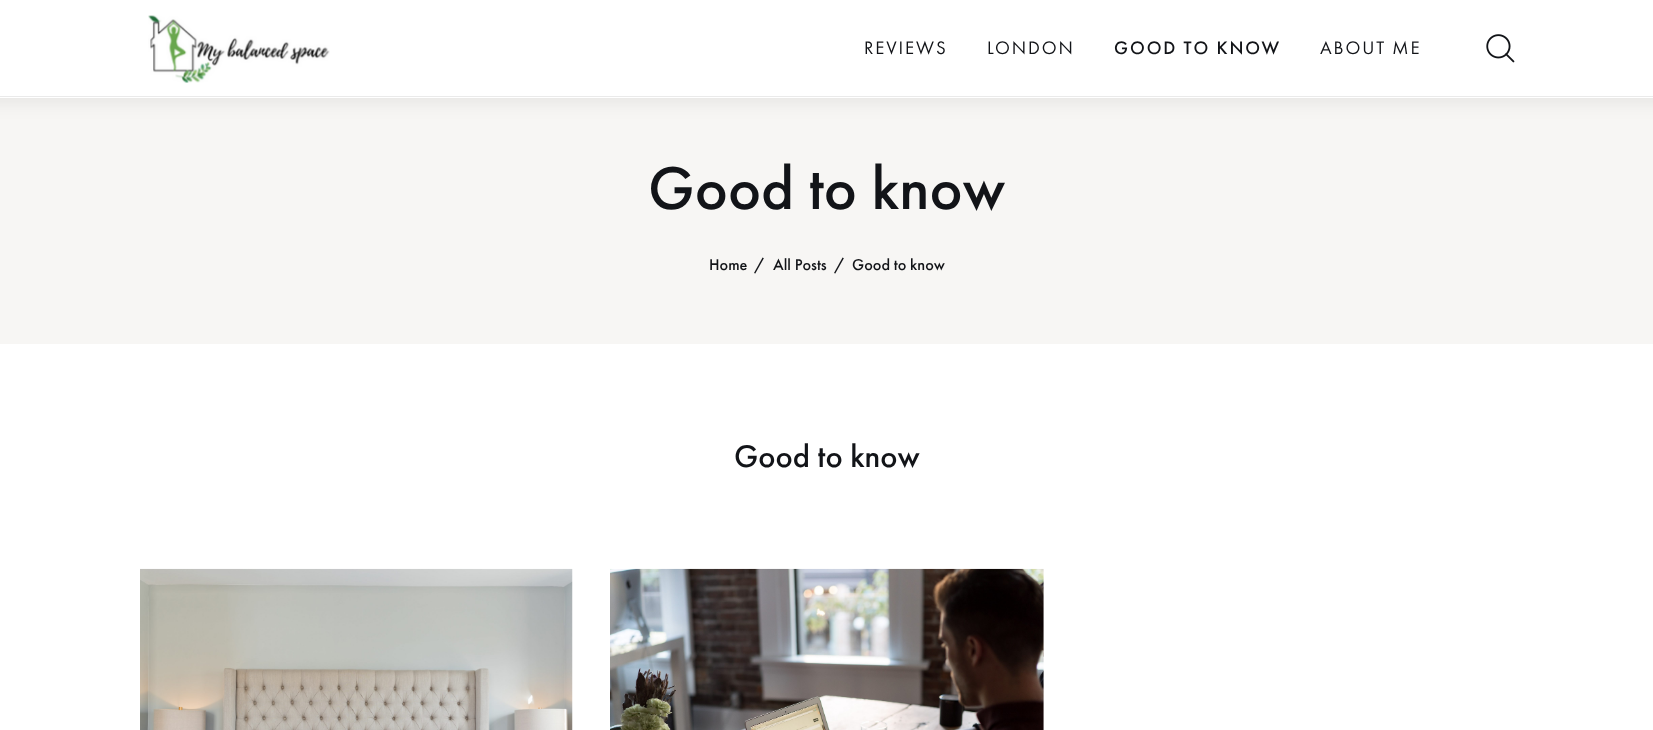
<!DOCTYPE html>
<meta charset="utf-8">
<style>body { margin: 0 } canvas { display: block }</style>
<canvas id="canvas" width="1653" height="730"></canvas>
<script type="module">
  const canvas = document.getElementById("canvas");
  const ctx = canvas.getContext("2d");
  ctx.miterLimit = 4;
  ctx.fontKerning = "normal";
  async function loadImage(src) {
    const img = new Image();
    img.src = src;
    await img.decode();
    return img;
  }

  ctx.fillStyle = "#ffffff";
  ctx.fillRect(0, 0, 1653, 730);
  ctx.fillStyle = "#f7f6f4";
  ctx.fillRect(0, 98, 1653, 246);
  ctx.fillStyle = "rgba(0, 0, 0, 0.08)";
  ctx.filter = "blur(10px)";
  ctx.beginPath();
  ctx.rect(-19, 4, 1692, 97);
  ctx.fill();
  ctx.filter = "none";
  ctx.fillStyle = "#ffffff";
  ctx.fillRect(0, 0, 1653, 98);
  ctx.fillStyle = "#eaeaea";
  ctx.fillRect(0, 96, 1653, 1);
  ctx.drawImage(await loadImage("img1.png"), 148, 15, 182, 68);
  ctx.letterSpacing = "1.9px";
  ctx.font = "18.75px Futura PT";
  ctx.fillStyle = "#121418";
  ctx.fillText("REVIEWS", 864, 54);
  ctx.fillText("LONDON", 987, 54);
  ctx.font = "500 18.75px Futura PT";
  ctx.fillText("GOOD TO KNOW", 1114, 54);
  ctx.font = "18.75px Futura PT";
  ctx.fillText("ABOUT ME", 1320, 54);
  ctx.drawImage(await loadImage("img2.png"), 1486, 34, 29, 29);
  ctx.letterSpacing = "0px";
  ctx.font = "500 62.5px Futura PT";
  ctx.fillText("Good to know", 648, 209);
  ctx.font = "500 16.25px Futura PT";
  ctx.fillText("Home", 709, 270);
  ctx.fillText("/", 754, 270);
  ctx.fillText("All Posts", 773, 270);
  ctx.fillText("/", 834, 270);
  ctx.fillText("Good to know", 852, 270);
  ctx.font = "500 32.5px Futura PT";
  ctx.fillText("Good to know", 734, 467);
  ctx.drawImage(await loadImage("img3.png"), 140, 568, 433, 162);
  ctx.drawImage(await loadImage("img4.png"), 610, 568, 434, 162);
</script>
